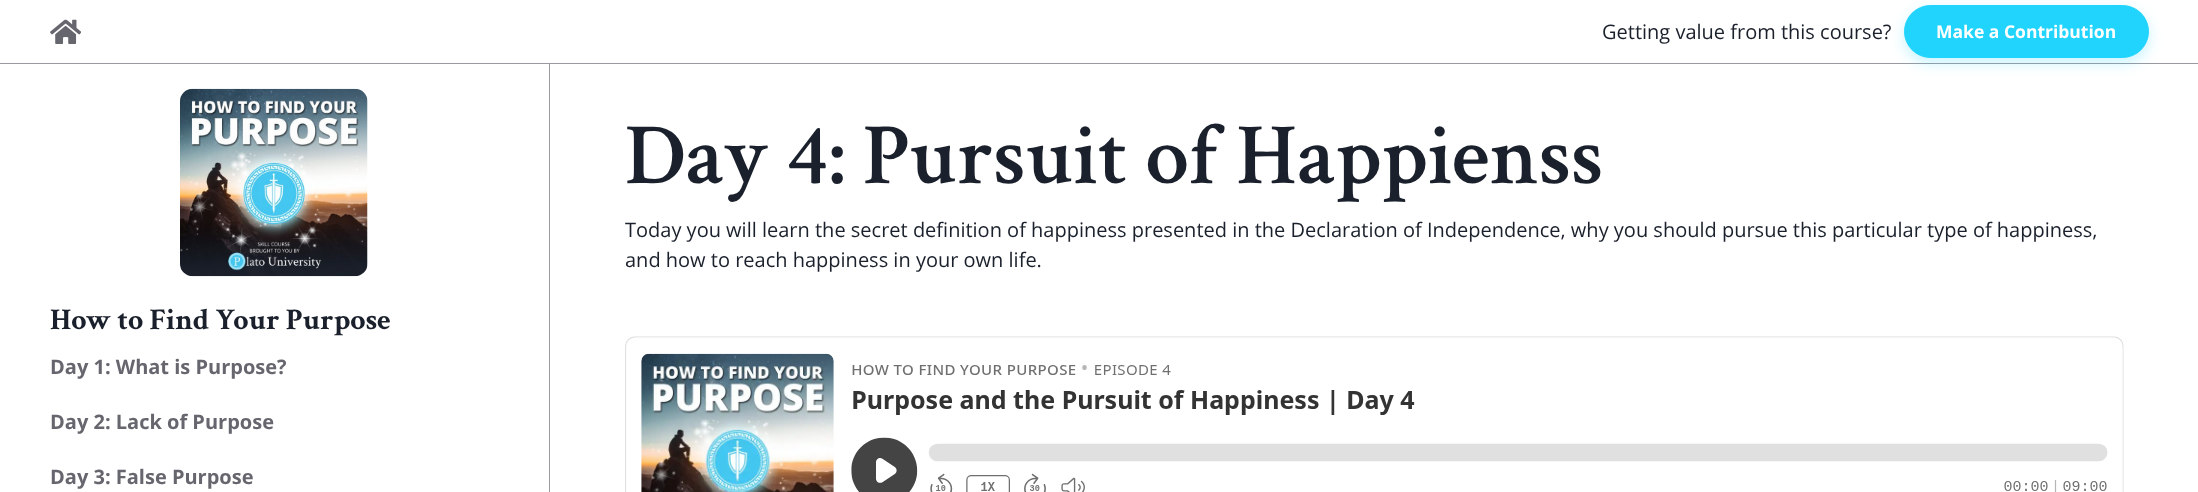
<!DOCTYPE html>
<meta charset="utf-8">
<style>body { margin: 0 } canvas { display: block }</style>
<canvas id="canvas" width="2198" height="492"></canvas>
<script type="module">
  const canvas = document.getElementById("canvas");
  const ctx = canvas.getContext("2d");
  ctx.miterLimit = 4;
  ctx.fontKerning = "normal";
  async function loadImage(src) {
    const img = new Image();
    img.src = src;
    await img.decode();
    return img;
  }

  ctx.fillStyle = "#ffffff";
  ctx.fillRect(0, 0, 2198, 492);
  ctx.fillStyle = "#9999a1";
  ctx.fillRect(0, 63, 2198, 1);
  ctx.drawImage(await loadImage("img1.png"), 50, 19, 31, 25);
  ctx.font = "20px Open Sans";
  ctx.fillStyle = "#1b212c";
  ctx.fillText("Getting value from this course?", 1602, 39);
  ctx.fillStyle = "rgba(33, 212, 253, 0.25)";
  ctx.filter = "blur(7px)";
  ctx.beginPath();
  ctx.roundRect(1904, 10, 245, 53, 26.5);
  ctx.fill();
  ctx.filter = "none";
  ctx.fillStyle = "#21d4fd";
  ctx.beginPath();
  ctx.roundRect(1904.5, 5.5, 244, 52, 26);
  ctx.fill();
  ctx.strokeStyle = "#21d4fd";
  ctx.stroke();
  ctx.font = "bold 17.5px Open Sans";
  ctx.fillStyle = "#ffffff";
  ctx.fillText("Make a Contribution", 1936, 38);
  ctx.font = "600 87.5px Crimson Text";
  ctx.fillStyle = "#1b212c";
  ctx.fillText("Day 4: Pursuit of Happienss", 625, 183);
  ctx.font = "20px Open Sans";
  ctx.fillText("Today you will learn the secret definition of happiness presented in the Declaration of Independence, why you should pursue this particular type of happiness,", 625, 237);
  ctx.fillText("and how to reach happiness in your own life.", 625, 267);
  ctx.drawImage(await loadImage("img2.png"), 625, 336, 1499, 156);
  ctx.fillStyle = "#9999a1";
  ctx.fillRect(549, 64, 1, 428);
  ctx.drawImage(await loadImage("img3.png"), 180, 88, 188, 189);
  ctx.font = "bold 30px Crimson Text";
  ctx.fillStyle = "#1b212c";
  ctx.fillText("How to Find Your Purpose", 50, 329);
  ctx.font = "bold 20px Open Sans";
  ctx.fillStyle = "#66666e";
  ctx.fillText("Day 1: What is Purpose?", 50, 374);
  ctx.fillText("Day 2: Lack of Purpose", 50, 429);
  ctx.fillText("Day 3: False Purpose", 50, 484);
</script>
